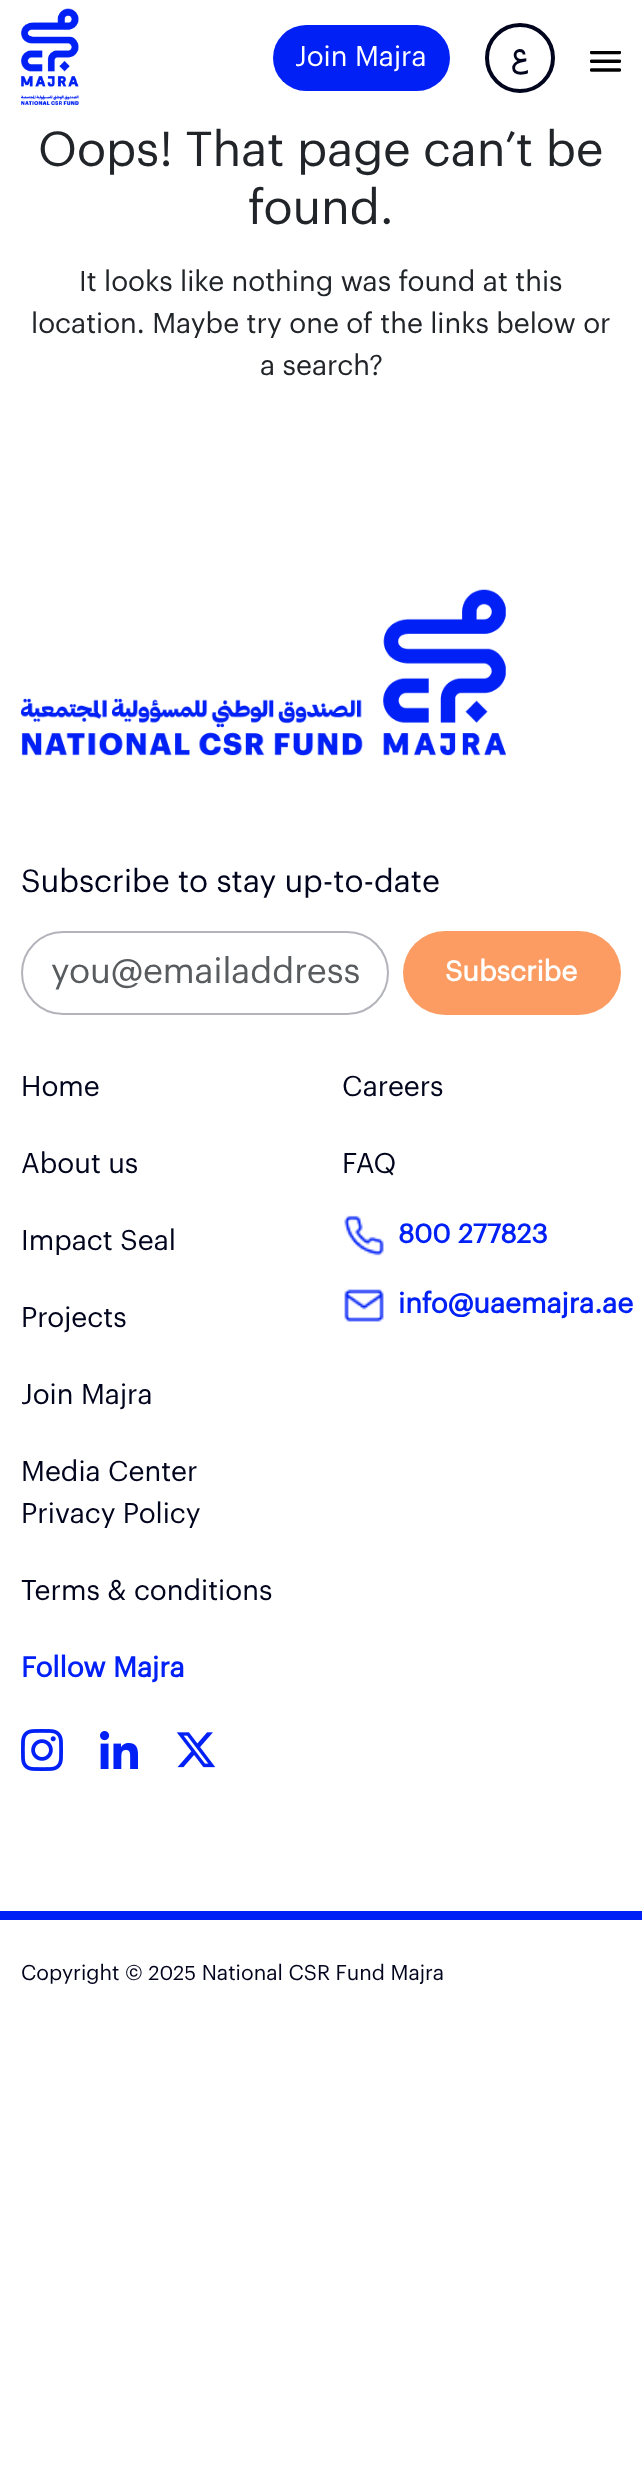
<!DOCTYPE html>
<meta charset="utf-8">
<style>body { margin: 0 } canvas { display: block }</style>
<canvas id="canvas" width="642" height="2479"></canvas>
<script type="module">
  const canvas = document.getElementById("canvas");
  const ctx = canvas.getContext("2d");
  ctx.miterLimit = 4;
  ctx.fontKerning = "normal";
  async function loadImage(src) {
    const img = new Image();
    img.src = src;
    await img.decode();
    return img;
  }

  ctx.fillStyle = "#ffffff";
  ctx.fillRect(0, 0, 642, 2479);
  ctx.drawImage(await loadImage("img1.png"), 21, 8, 58, 97);
  ctx.fillStyle = "#0020f6";
  ctx.beginPath();
  ctx.roundRect(273, 25, 177, 66, 33);
  ctx.fill();
  ctx.font = "28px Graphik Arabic";
  ctx.fillStyle = "#ffffff";
  ctx.fillText("Join Majra", 295, 66);
  ctx.beginPath();
  ctx.arc(520, 58, 33, 0, Math.PI * 2);
  ctx.strokeStyle = "#00041c";
  ctx.lineWidth = 4;
  ctx.stroke();
  ctx.direction = "rtl";
  ctx.font = "bold 28px Graphik Arabic";
  ctx.fillStyle = "#00041c";
  ctx.fillText("ع", 528, 66);
  ctx.drawImage(await loadImage("img2.png"), 590, 51, 31, 21);
  ctx.direction = "ltr";
  ctx.font = "48.1px Graphik Arabic";
  ctx.fillStyle = "#212529";
  ctx.fillText("Oops! That page can’t be", 38, 166);
  ctx.fillText("found.", 248, 224);
  ctx.font = "28px Graphik Arabic";
  ctx.fillText("It looks like nothing was found at this", 79, 291);
  ctx.fillText("location. Maybe try one of the links below or", 31, 333);
  ctx.fillText("a search?", 260, 375);
  ctx.drawImage(await loadImage("img3.png"), 21, 589, 485, 167);
  ctx.font = "31.5px Graphik Arabic";
  ctx.fillStyle = "#00041c";
  ctx.fillText("Subscribe to stay up-to-date", 21, 892);
  ctx.beginPath();
  ctx.roundRect(22, 932, 366, 82, 41);
  ctx.strokeStyle = "#b3b4bb";
  ctx.lineWidth = 2;
  ctx.stroke();
  ctx.font = "35px Graphik Arabic";
  ctx.fillStyle = "#595c5f";
  ctx.fillText("you@emailaddress", 51, 983);
  ctx.fillStyle = "#fc9c63";
  ctx.beginPath();
  ctx.roundRect(403, 931, 218, 84, 42);
  ctx.fill();
  ctx.font = "bold 28px Graphik Arabic";
  ctx.fillStyle = "#ffffff";
  ctx.fillText("Subscribe", 445, 981);
  ctx.font = "28px Graphik Arabic";
  ctx.fillStyle = "#00041c";
  ctx.fillText("Home", 21, 1096);
  ctx.fillText("About us", 21, 1173);
  ctx.fillText("Impact Seal", 21, 1250);
  ctx.fillText("Projects", 21, 1327);
  ctx.fillText("Join Majra", 21, 1404);
  ctx.fillText("Media Center", 21, 1481);
  ctx.fillText("Careers", 342, 1096);
  ctx.fillText("FAQ", 342, 1173);
  ctx.drawImage(await loadImage("img4.png"), 344, 1215, 40, 41);
  ctx.font = "bold 28px Graphik Arabic";
  ctx.fillStyle = "#0020f6";
  ctx.fillText("800 277823", 398, 1243);
  ctx.drawImage(await loadImage("img5.png"), 344, 1289, 40, 33);
  ctx.fillText("info@uaemajra.ae", 398, 1313);
  ctx.font = "28px Graphik Arabic";
  ctx.fillStyle = "#00041c";
  ctx.fillText("Privacy Policy", 21, 1523);
  ctx.fillText("Terms & conditions", 21, 1600);
  ctx.font = "bold 28px Graphik Arabic";
  ctx.fillStyle = "#0020f6";
  ctx.fillText("Follow Majra", 21, 1677);
  ctx.drawImage(await loadImage("img6.png"), 21, 1729, 42, 42);
  ctx.drawImage(await loadImage("img7.png"), 100, 1731, 38, 38);
  ctx.drawImage(await loadImage("img8.png"), 176, 1732, 40, 36);
  ctx.fillRect(0, 1911, 642, 9);
  ctx.font = "21px Graphik Arabic";
  ctx.fillStyle = "#00041c";
  ctx.fillText("Copyright © 2025 National CSR Fund Majra", 21, 1980);
</script>
